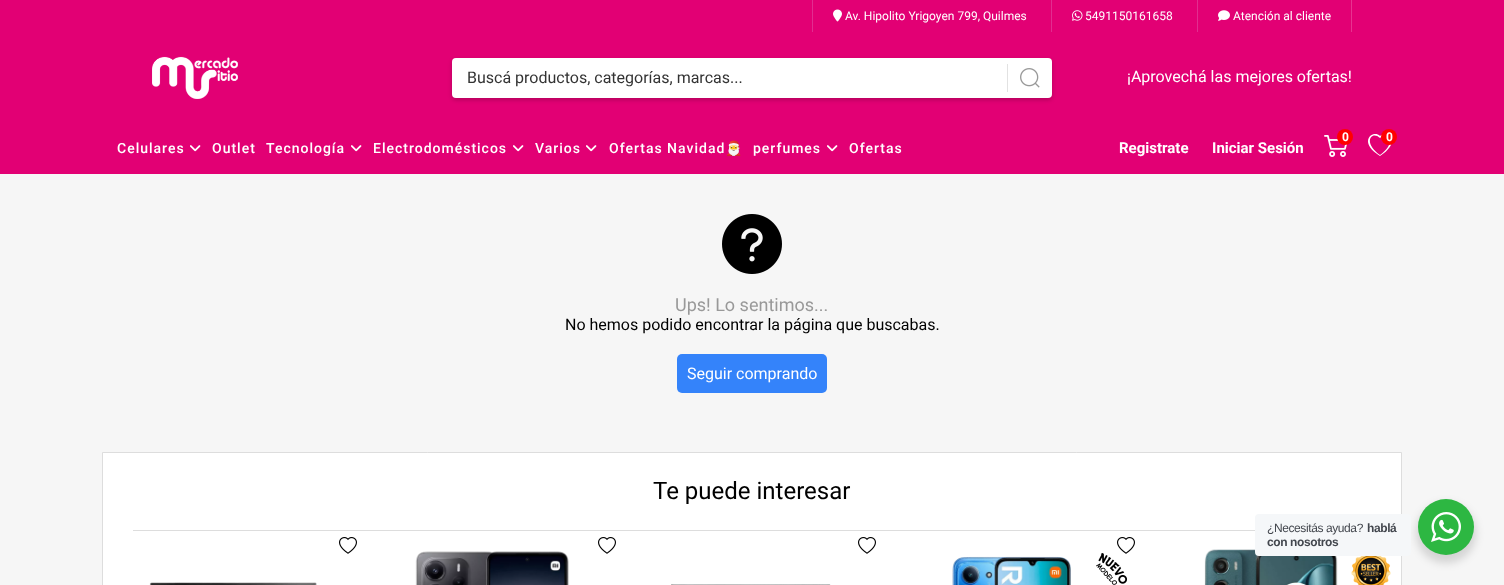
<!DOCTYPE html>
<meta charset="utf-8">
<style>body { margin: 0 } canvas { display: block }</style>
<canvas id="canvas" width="1504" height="585"></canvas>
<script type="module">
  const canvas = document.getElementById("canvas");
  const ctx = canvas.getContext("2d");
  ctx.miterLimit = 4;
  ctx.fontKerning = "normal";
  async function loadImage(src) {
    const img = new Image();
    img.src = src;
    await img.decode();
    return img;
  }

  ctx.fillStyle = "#f6f6f6";
  ctx.fillRect(0, 0, 1504, 585);
  ctx.fillStyle = "#e20074";
  ctx.fillRect(0, 0, 1504, 174);
  ctx.fillStyle = "#e22d90";
  ctx.fillRect(812, 0, 1, 32);
  ctx.drawImage(await loadImage("img1.png"), 833, 9, 9, 13);
  ctx.font = "12px Roboto";
  ctx.fillStyle = "#ffffff";
  ctx.fillText("Av. Hipolito Yrigoyen 799, Quilmes", 845, 20);
  ctx.fillStyle = "#e22d90";
  ctx.fillRect(1051, 0, 1, 32);
  ctx.drawImage(await loadImage("img2.png"), 1072, 10, 11, 11);
  ctx.fillStyle = "#ffffff";
  ctx.fillText("5491150161658", 1085, 20);
  ctx.fillStyle = "#e83390";
  ctx.fillRect(1351, 0, 1, 32);
  ctx.fillStyle = "#e22d90";
  ctx.fillRect(1197, 0, 1, 32);
  ctx.drawImage(await loadImage("img3.png"), 1218, 10, 12, 11);
  ctx.fillStyle = "#ffffff";
  ctx.fillText("Atención al cliente", 1233, 20);
  ctx.drawImage(await loadImage("img4.png"), 152, 56, 86, 43);
  ctx.fillStyle = "rgba(0, 0, 0, 0.2)";
  ctx.filter = "blur(2px)";
  ctx.beginPath();
  ctx.roundRect(452, 60, 600, 40, 4);
  ctx.fill();
  ctx.filter = "none";
  ctx.fillStyle = "#ffffff";
  ctx.beginPath();
  ctx.roundRect(452, 58, 600, 40, 4);
  ctx.fill();
  ctx.font = "16px Roboto";
  ctx.fillStyle = "#333333";
  ctx.fillText("Buscá productos, categorías, marcas...", 467, 83);
  ctx.fillStyle = "#e2e2e2";
  ctx.fillRect(1007, 64, 1, 28);
  ctx.drawImage(await loadImage("img5.png"), 1020, 68, 20, 20);
  ctx.fillStyle = "#ffffff";
  ctx.fillText("¡Aprovechá las mejores ofertas!", 1127, 82);
  ctx.letterSpacing = "1px";
  ctx.font = "500 14px Roboto";
  ctx.fillText("Celulares", 117, 153);
  ctx.drawImage(await loadImage("img6.png"), 190, 145, 11, 7);
  ctx.fillText("Outlet", 212, 153);
  ctx.fillText("Tecnología", 266, 153);
  ctx.drawImage(await loadImage("img6.png"), 351, 145, 11, 7);
  ctx.fillText("Electrodomésticos", 373, 153);
  ctx.drawImage(await loadImage("img6.png"), 513, 145, 11, 7);
  ctx.fillText("Varios", 535, 153);
  ctx.drawImage(await loadImage("img6.png"), 586, 145, 11, 7);
  ctx.fillText("Ofertas Navidad", 609, 153);
  ctx.font = "14px Noto Color Emoji";
  ctx.fillText("🎅", 725, 153);
  ctx.font = "500 14px Roboto";
  ctx.fillText("perfumes", 753, 153);
  ctx.drawImage(await loadImage("img6.png"), 827, 145, 11, 7);
  ctx.fillText("Ofertas", 849, 153);
  ctx.drawImage(await loadImage("img7.png"), 1324, 135, 23, 22);
  ctx.fillStyle = "#ff0000";
  ctx.beginPath();
  ctx.arc(1345, 137, 8, 0, Math.PI * 2);
  ctx.fill();
  ctx.letterSpacing = "0px";
  ctx.font = "bold 12px Roboto";
  ctx.fillStyle = "#ffffff";
  ctx.fillText("0", 1342, 141);
  ctx.beginPath();
  ctx.moveTo(1380, 138);
  ctx.bezierCurveTo(1372, 130, 1362, 142, 1380, 155);
  ctx.bezierCurveTo(1398, 142, 1388, 130, 1380, 138);
  ctx.closePath();
  ctx.moveTo(1380, 156);
  ctx.bezierCurveTo(1357, 142, 1373, 129, 1380, 136);
  ctx.bezierCurveTo(1387, 129, 1403, 141, 1380, 156);
  ctx.closePath();
  ctx.fill();
  ctx.fillStyle = "#ff0000";
  ctx.beginPath();
  ctx.arc(1389, 137, 8, 0, Math.PI * 2);
  ctx.fill();
  ctx.fillStyle = "#ffffff";
  ctx.fillText("0", 1386, 141);
  ctx.font = "bold 15px Roboto";
  ctx.fillText("Registrate", 1119, 153);
  ctx.fillText("Iniciar Sesión", 1212, 153);
  ctx.drawImage(await loadImage("img8.png"), 722, 214, 60, 60);
  ctx.font = "18px Roboto";
  ctx.fillStyle = "#999999";
  ctx.fillText("Ups! Lo sentimos...", 675, 311);
  ctx.font = "16px Roboto";
  ctx.fillStyle = "#000000";
  ctx.fillText("No hemos podido encontrar la página que buscabas.", 565, 330);
  ctx.fillStyle = "#3483fa";
  ctx.beginPath();
  ctx.roundRect(677, 354, 150, 39, 5);
  ctx.fill();
  ctx.fillStyle = "#ffffff";
  ctx.fillText("Seguir comprando", 687, 379);
  ctx.beginPath();
  ctx.rect(102.5, 452.5, 1299, 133);
  ctx.fill();
  ctx.strokeStyle = "#dddddd";
  ctx.stroke();
  ctx.fillStyle = "#dddddd";
  ctx.fillRect(133, 530, 1122, 1);
  ctx.font = "24px Roboto";
  ctx.fillStyle = "#000000";
  ctx.fillText("Te puede interesar", 653, 499);
  ctx.drawImage(await loadImage("img9.png"), 339, 537, 18, 17);
  ctx.drawImage(await loadImage("img10.png"), 149, 582, 168, 3);
  ctx.drawImage(await loadImage("img9.png"), 598, 537, 18, 17);
  ctx.drawImage(await loadImage("img11.png"), 415, 551, 154, 34);
  ctx.drawImage(await loadImage("img9.png"), 858, 537, 18, 17);
  ctx.drawImage(await loadImage("img12.png"), 671, 584, 160, 1);
  ctx.drawImage(await loadImage("img14.png"), 1096, 553, 31, 32);
  ctx.drawImage(await loadImage("img9.png"), 1117, 537, 18, 17);
  ctx.drawImage(await loadImage("img13.png"), 952, 556, 119, 29);
  ctx.drawImage(await loadImage("img15.png"), 1204, 549, 134, 36);
  ctx.drawImage(await loadImage("img16.png"), 1351, 556, 40, 29);
  ctx.fillStyle = "rgba(0, 0, 0, 0.14)";
  ctx.filter = "blur(4px)";
  ctx.beginPath();
  ctx.roundRect(1416, 503, 60, 60, 30);
  ctx.fill();
  ctx.filter = "none";
  ctx.fillStyle = "#f5f7f9";
  ctx.beginPath();
  ctx.roundRect(1255, 514, 156, 42, 4);
  ctx.fill();
  ctx.letterSpacing = "-0.4px";
  ctx.font = "12px Liberation Sans";
  ctx.fillStyle = "#43474e";
  ctx.fillText("¿Necesitás ayuda?", 1267, 532);
  ctx.font = "bold 12px Liberation Sans";
  ctx.fillText("hablá", 1367, 532);
  ctx.fillText("con nosotros", 1267, 546);
  ctx.fillStyle = "#2db742";
  ctx.beginPath();
  ctx.arc(1446, 527, 28, 0, Math.PI * 2);
  ctx.fill();
  ctx.drawImage(await loadImage("img17.png"), 1431, 512, 30, 30);
</script>
